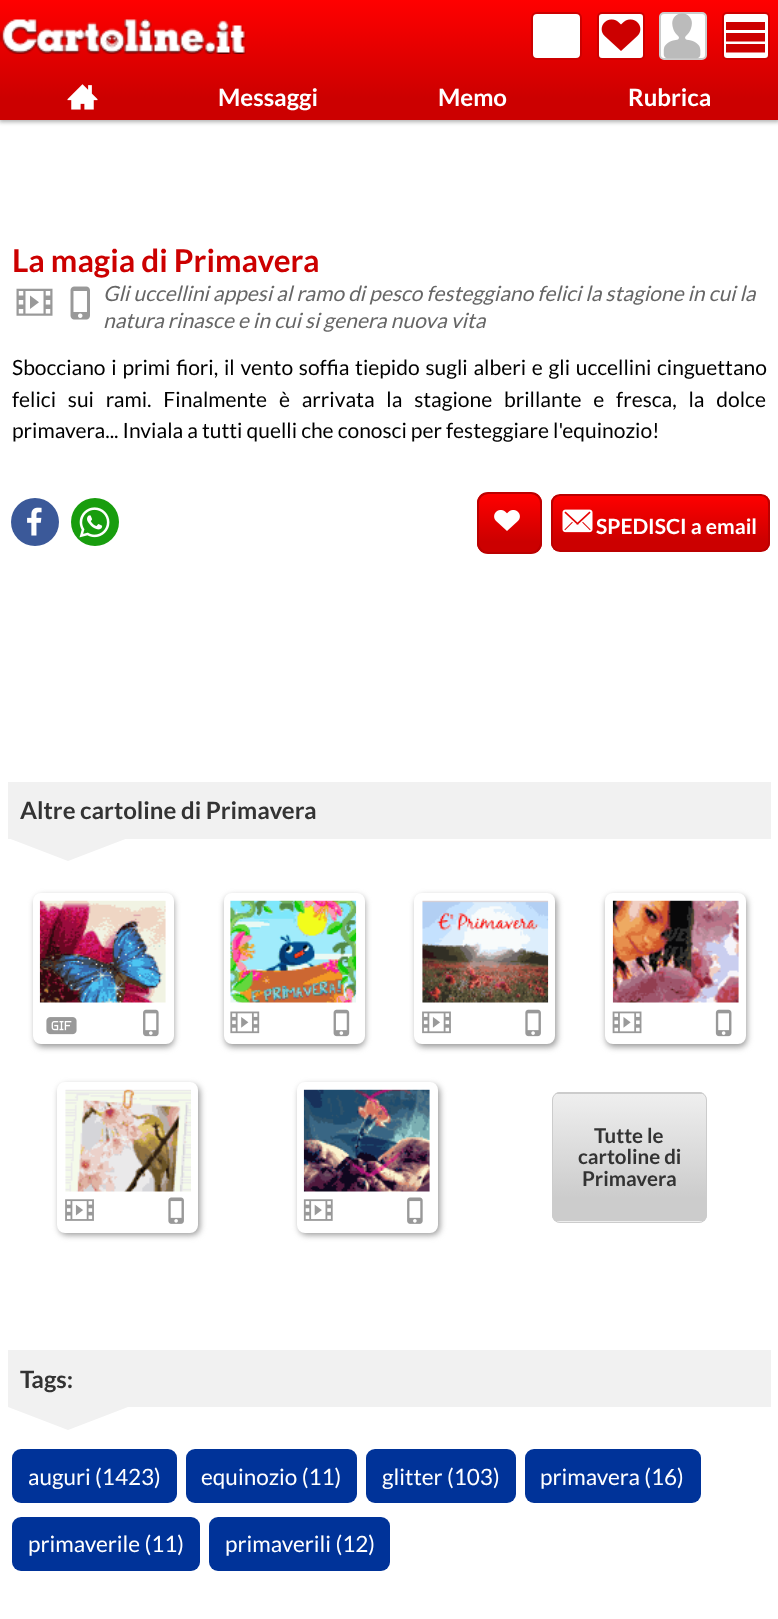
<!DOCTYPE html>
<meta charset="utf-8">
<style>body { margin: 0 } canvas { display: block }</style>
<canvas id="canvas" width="778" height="1619"></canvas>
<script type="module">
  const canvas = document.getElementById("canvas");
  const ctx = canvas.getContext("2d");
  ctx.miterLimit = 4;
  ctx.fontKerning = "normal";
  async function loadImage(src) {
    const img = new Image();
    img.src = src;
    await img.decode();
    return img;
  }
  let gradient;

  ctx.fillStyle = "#ffffff";
  ctx.fillRect(0, 0, 778, 1619);
  ctx.fillStyle = "#b0b0b0";
  ctx.filter = "blur(2px)";
  ctx.beginPath();
  ctx.rect(-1, -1, 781, 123);
  ctx.fill();
  ctx.filter = "none";
  gradient = ctx.createLinearGradient(389, 0, 389, 120);
  gradient.addColorStop(0, "#ff0000");
  gradient.addColorStop(0.82, "#cc0000");
  ctx.fillStyle = gradient;
  ctx.fillRect(0, 0, 778, 120);
  ctx.drawImage(await loadImage("img1.png"), 0, 19, 246, 35);
  ctx.fillStyle = "#ffffff";
  ctx.beginPath();
  ctx.roundRect(532, 13, 49, 46, 5);
  ctx.fill();
  ctx.strokeStyle = "#cc0000";
  ctx.lineWidth = 2;
  ctx.stroke();
  ctx.beginPath();
  ctx.roundRect(598, 13, 46, 46, 4);
  ctx.fill();
  ctx.stroke();
  ctx.drawImage(await loadImage("img2.png"), 601, 19, 40, 32);
  ctx.beginPath();
  ctx.roundRect(660, 13, 46, 46, 4);
  ctx.fill();
  ctx.strokeStyle = "#cccccc";
  ctx.stroke();
  ctx.drawImage(await loadImage("img3.png"), 663, 13, 38, 46);
  ctx.beginPath();
  ctx.roundRect(723, 13, 46, 46, 4);
  ctx.fill();
  ctx.strokeStyle = "#cc0000";
  ctx.stroke();
  ctx.fillStyle = "#cc0000";
  ctx.beginPath();
  ctx.moveTo(726, 22);
  ctx.lineTo(765, 22);
  ctx.lineTo(765, 30);
  ctx.lineTo(726, 30);
  ctx.closePath();
  ctx.moveTo(726, 33);
  ctx.lineTo(765, 33);
  ctx.lineTo(765, 41.5);
  ctx.lineTo(726, 41.5);
  ctx.closePath();
  ctx.moveTo(726, 44);
  ctx.lineTo(765, 44);
  ctx.lineTo(765, 52.5);
  ctx.lineTo(726, 52.5);
  ctx.closePath();
  ctx.fill();
  ctx.drawImage(await loadImage("img4.png"), 67, 84, 31, 26);
  ctx.font = "bold 24px Lato";
  ctx.fillStyle = "#ffffff";
  ctx.fillText("Messaggi", 218, 106);
  ctx.fillText("Memo", 438, 106);
  ctx.fillText("Rubrica", 628, 106);
  ctx.font = "bold 31.5px Lato";
  ctx.fillStyle = "#cc0000";
  ctx.fillText("La magia di Primavera", 12, 272);
  ctx.drawImage(await loadImage("img5.png"), 16, 288, 37, 28);
  ctx.drawImage(await loadImage("img6.png"), 70, 286, 20, 34);
  ctx.font = "italic 21px Lato";
  ctx.fillStyle = "#666666";
  ctx.fillText("Gli uccellini appesi al ramo di pesco festeggiano felici la stagione in cui la", 103, 301);
  ctx.fillText("natura rinasce e in cui si genera nuova vita", 103, 328);
  ctx.wordSpacing = "1.7px";
  ctx.font = "21px Lato";
  ctx.fillStyle = "#000000";
  ctx.fillText("Sbocciano i primi fiori, il vento soffia tiepido sugli alberi e gli uccellini cinguettano", 12, 375);
  ctx.wordSpacing = "7.75px";
  ctx.fillText("felici sui rami. Finalmente è arrivata la stagione brillante e fresca, la dolce", 12, 407);
  ctx.wordSpacing = "0px";
  ctx.fillText("primavera... Inviala a tutti quelli che conosci per festeggiare l'equinozio!", 12, 438);
  ctx.fillStyle = "#3b5999";
  ctx.beginPath();
  ctx.arc(35, 522, 24, 0, Math.PI * 2);
  ctx.fill();
  ctx.drawImage(await loadImage("img7.png"), 27, 507, 15, 29);
  ctx.fillStyle = "#189d0e";
  ctx.beginPath();
  ctx.arc(95, 522, 24, 0, Math.PI * 2);
  ctx.fill();
  ctx.drawImage(await loadImage("img8.png"), 79, 507, 31, 31);
  ctx.save();
  ctx.beginPath();
  ctx.roundRect(477, 492, 65, 62, 11);
  ctx.clip();
  gradient = ctx.createLinearGradient(509, 494, 509, 552);
  gradient.addColorStop(0, "#ff0000");
  gradient.addColorStop(0.82, "#cc0000");
  ctx.fillStyle = gradient;
  ctx.fillRect(477, 494, 65, 58);
  ctx.restore();
  ctx.beginPath();
  ctx.roundRect(478, 493, 63, 60, 10);
  ctx.strokeStyle = "#bb0000";
  ctx.stroke();
  ctx.drawImage(await loadImage("img9.png"), 494, 510, 26, 21);
  ctx.save();
  ctx.beginPath();
  ctx.roundRect(551, 494, 219, 58, 9);
  ctx.clip();
  gradient = ctx.createLinearGradient(660, 495, 660, 551);
  gradient.addColorStop(0, "#ff0000");
  gradient.addColorStop(0.82, "#cc0000");
  ctx.fillStyle = gradient;
  ctx.fillRect(551, 495, 219, 56);
  ctx.restore();
  ctx.beginPath();
  ctx.roundRect(552, 495, 217, 56, 8);
  ctx.stroke();
  ctx.drawImage(await loadImage("img10.png"), 562, 509, 31, 24);
  ctx.font = "bold 21px Lato";
  ctx.fillStyle = "#ffffff";
  ctx.fillText("SPEDISCI a email", 596, 534);
  ctx.fillStyle = "#f1f1f1";
  ctx.beginPath();
  ctx.moveTo(8, 838);
  ctx.lineTo(128, 838);
  ctx.lineTo(68, 861);
  ctx.closePath();
  ctx.fill();
  ctx.fillRect(8, 782, 763, 57);
  ctx.font = "bold 24px Lato";
  ctx.fillStyle = "#333333";
  ctx.fillText("Altre cartoline di Primavera", 20, 819);
  ctx.fillStyle = "#999999";
  ctx.filter = "blur(3px)";
  ctx.beginPath();
  ctx.roundRect(35, 896, 139, 151, 8);
  ctx.fill();
  ctx.filter = "none";
  ctx.fillStyle = "#ffffff";
  ctx.beginPath();
  ctx.roundRect(36.5, 896.5, 134, 144, 4.5);
  ctx.fill();
  ctx.strokeStyle = "#ffffff";
  ctx.lineWidth = 7;
  ctx.stroke();
  ctx.drawImage(await loadImage("img11.png"), 39, 900, 127, 103);
  ctx.drawImage(await loadImage("img12.png"), 46, 1017, 31, 18);
  ctx.drawImage(await loadImage("img13.png"), 143, 1009, 16, 28);
  ctx.fillStyle = "#999999";
  ctx.filter = "blur(3px)";
  ctx.beginPath();
  ctx.roundRect(225, 896, 140, 151, 8);
  ctx.fill();
  ctx.filter = "none";
  ctx.fillStyle = "#ffffff";
  ctx.beginPath();
  ctx.roundRect(227.5, 896.5, 134, 144, 4.5);
  ctx.fill();
  ctx.stroke();
  ctx.drawImage(await loadImage("img14.png"), 230, 900, 127, 103);
  ctx.drawImage(await loadImage("img15.png"), 230, 1011, 30, 23);
  ctx.drawImage(await loadImage("img16.png"), 333, 1009, 17, 28);
  ctx.fillStyle = "#999999";
  ctx.filter = "blur(3px)";
  ctx.beginPath();
  ctx.roundRect(416, 896, 141, 151, 8);
  ctx.fill();
  ctx.filter = "none";
  ctx.fillStyle = "#ffffff";
  ctx.beginPath();
  ctx.roundRect(417.5, 896.5, 134, 144, 4.5);
  ctx.fill();
  ctx.stroke();
  ctx.drawImage(await loadImage("img17.png"), 422, 900, 127, 103);
  ctx.drawImage(await loadImage("img18.png"), 422, 1011, 29, 23);
  ctx.drawImage(await loadImage("img19.png"), 525, 1009, 16, 28);
  ctx.fillStyle = "#999999";
  ctx.filter = "blur(3px)";
  ctx.beginPath();
  ctx.roundRect(606, 896, 141, 151, 8);
  ctx.fill();
  ctx.filter = "none";
  ctx.fillStyle = "#ffffff";
  ctx.beginPath();
  ctx.roundRect(608.5, 896.5, 134, 144, 4.5);
  ctx.fill();
  ctx.stroke();
  ctx.drawImage(await loadImage("img20.png"), 612, 900, 127, 103);
  ctx.drawImage(await loadImage("img21.png"), 612, 1011, 30, 23);
  ctx.drawImage(await loadImage("img22.png"), 715, 1009, 17, 28);
  ctx.fillStyle = "#999999";
  ctx.filter = "blur(3px)";
  ctx.beginPath();
  ctx.roundRect(59, 1085, 141, 150, 8);
  ctx.fill();
  ctx.filter = "none";
  ctx.fillStyle = "#ffffff";
  ctx.beginPath();
  ctx.roundRect(60.5, 1085.5, 134, 144, 4.5);
  ctx.fill();
  ctx.stroke();
  ctx.drawImage(await loadImage("img23.png"), 65, 1089, 126, 103);
  ctx.drawImage(await loadImage("img24.png"), 65, 1199, 29, 22);
  ctx.drawImage(await loadImage("img25.png"), 168, 1197, 16, 27);
  ctx.fillStyle = "#999999";
  ctx.filter = "blur(3px)";
  ctx.beginPath();
  ctx.roundRect(299, 1085, 141, 150, 8);
  ctx.fill();
  ctx.filter = "none";
  ctx.fillStyle = "#ffffff";
  ctx.beginPath();
  ctx.roundRect(300.5, 1085.5, 134, 144, 4.5);
  ctx.fill();
  ctx.stroke();
  ctx.drawImage(await loadImage("img26.png"), 303, 1089, 127, 103);
  ctx.drawImage(await loadImage("img27.png"), 303, 1199, 30, 22);
  ctx.drawImage(await loadImage("img28.png"), 407, 1197, 16, 27);
  ctx.save();
  ctx.beginPath();
  ctx.roundRect(552, 1092, 155, 131, 8);
  ctx.clip();
  gradient = ctx.createLinearGradient(629, 965, 629, 1093);
  gradient.addColorStop(0, "#efefef");
  gradient.addColorStop(0.82, "#cccccc");
  ctx.fillStyle = gradient;
  ctx.fillRect(552, 1092, 155, 2);
  gradient = ctx.createLinearGradient(629, 1093, 629, 1221);
  gradient.addColorStop(0, "#efefef");
  gradient.addColorStop(0.82, "#cccccc");
  ctx.fillStyle = gradient;
  ctx.fillRect(552, 1094, 155, 127);
  gradient = ctx.createLinearGradient(629, 1221, 629, 1350);
  gradient.addColorStop(0, "#efefef");
  gradient.addColorStop(0.82, "#cccccc");
  ctx.fillStyle = gradient;
  ctx.fillRect(552, 1221, 155, 2);
  ctx.restore();
  ctx.beginPath();
  ctx.roundRect(552.5, 1092.5, 154, 130, 7.5);
  ctx.strokeStyle = "#cccccc";
  ctx.lineWidth = 1;
  ctx.stroke();
  ctx.font = "bold 20.5px Lato";
  ctx.fillStyle = "#333333";
  ctx.fillText("Tutte le", 594, 1143);
  ctx.fillText("cartoline di", 578, 1164);
  ctx.fillText("Primavera", 582, 1186);
  ctx.fillStyle = "#f1f1f1";
  ctx.fillRect(8, 1350, 763, 57);
  ctx.font = "bold 24px Lato";
  ctx.fillStyle = "#333333";
  ctx.fillText("Tags:", 20, 1388);
  ctx.fillStyle = "#f1f1f1";
  ctx.beginPath();
  ctx.moveTo(8, 1407);
  ctx.lineTo(128, 1407);
  ctx.lineTo(68, 1430);
  ctx.closePath();
  ctx.fill();
  ctx.fillStyle = "#003399";
  ctx.beginPath();
  ctx.roundRect(12, 1449, 165, 54, 9);
  ctx.fill();
  ctx.font = "22.5px Lato";
  ctx.fillStyle = "#ffffff";
  ctx.fillText("auguri (1423)", 28, 1485);
  ctx.fillStyle = "#003399";
  ctx.beginPath();
  ctx.roundRect(186, 1449, 171, 54, 9);
  ctx.fill();
  ctx.fillStyle = "#ffffff";
  ctx.fillText("equinozio (11)", 201, 1485);
  ctx.fillStyle = "#003399";
  ctx.beginPath();
  ctx.roundRect(366, 1449, 150, 54, 9);
  ctx.fill();
  ctx.fillStyle = "#ffffff";
  ctx.fillText("glitter (103)", 382, 1485);
  ctx.fillStyle = "#003399";
  ctx.beginPath();
  ctx.roundRect(525, 1449, 176, 54, 9);
  ctx.fill();
  ctx.fillStyle = "#ffffff";
  ctx.fillText("primavera (16)", 540, 1485);
  ctx.fillStyle = "#003399";
  ctx.beginPath();
  ctx.roundRect(12, 1517, 188, 54, 9);
  ctx.fill();
  ctx.fillStyle = "#ffffff";
  ctx.fillText("primaverile (11)", 28, 1552);
  ctx.fillStyle = "#003399";
  ctx.beginPath();
  ctx.roundRect(209, 1517, 181, 54, 9);
  ctx.fill();
  ctx.fillStyle = "#ffffff";
  ctx.fillText("primaverili (12)", 225, 1552);
</script>
